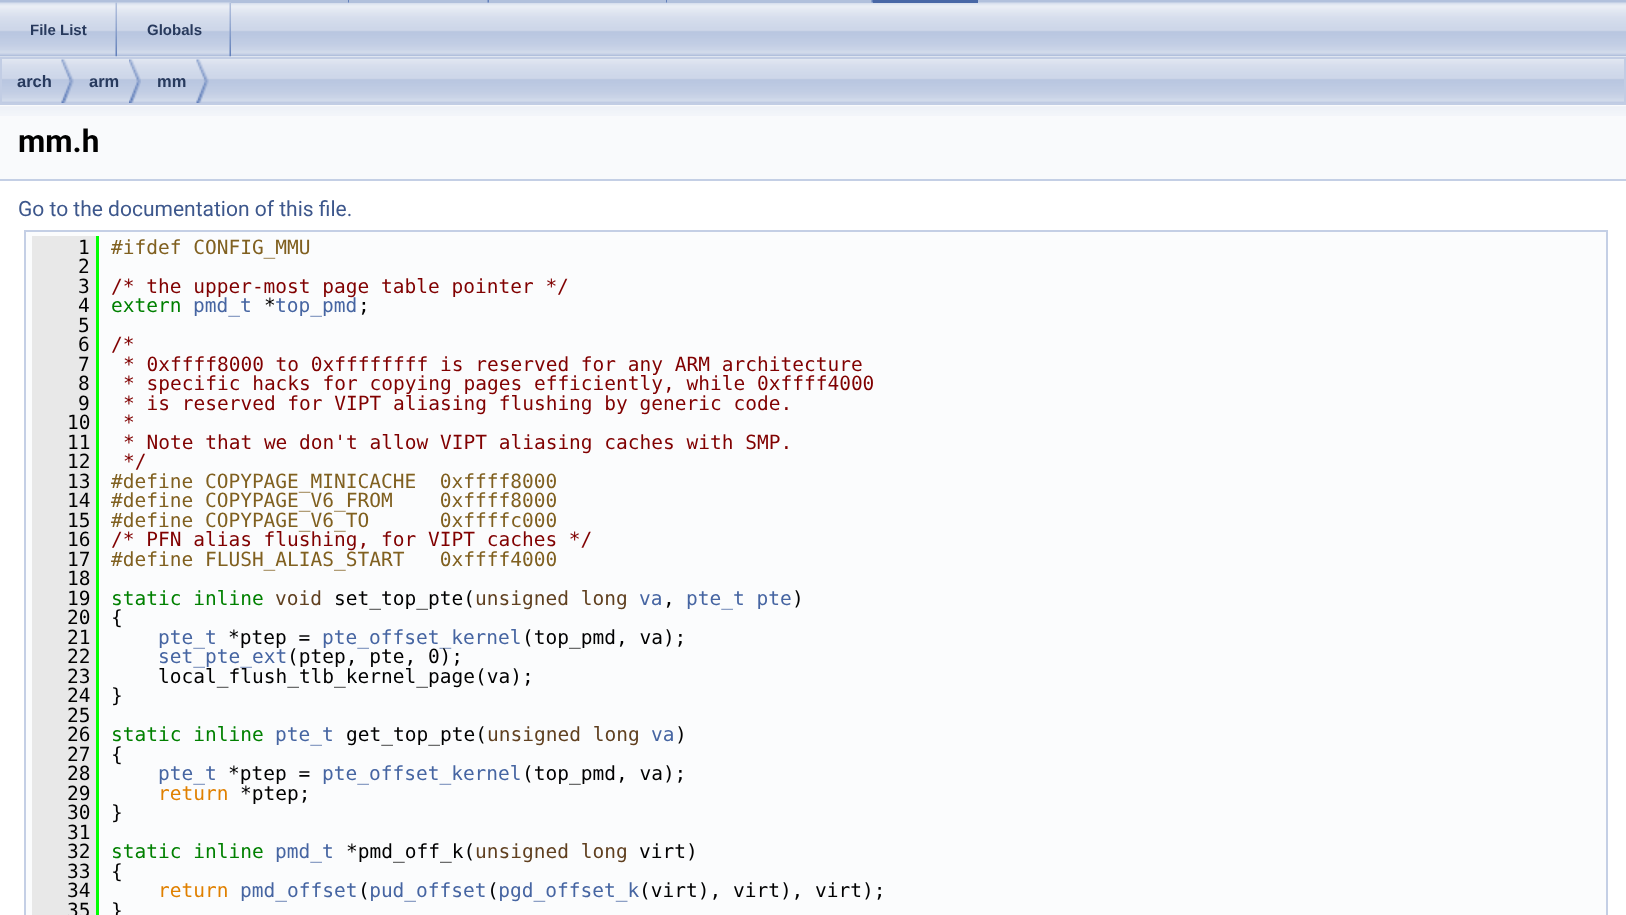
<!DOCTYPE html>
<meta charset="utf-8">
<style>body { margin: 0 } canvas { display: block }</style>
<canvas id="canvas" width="1626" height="915"></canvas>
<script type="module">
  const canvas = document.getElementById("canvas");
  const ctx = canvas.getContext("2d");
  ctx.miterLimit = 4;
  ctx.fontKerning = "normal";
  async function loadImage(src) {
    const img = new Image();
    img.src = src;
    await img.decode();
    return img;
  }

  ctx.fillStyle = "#ffffff";
  ctx.fillRect(0, 0, 1626, 915);
  ctx.fillStyle = "#b1c0dc";
  ctx.fillRect(978, 0, 648, 3);
  ctx.drawImage(await loadImage("img3.png"), 0, 2, 1626, 55);
  ctx.fillRect(0, 0, 873, 3);
  ctx.drawImage(await loadImage("img1.png"), 348, 0, 1, 3);
  ctx.drawImage(await loadImage("img2.png"), 487, 0, 2, 3);
  ctx.drawImage(await loadImage("img1.png"), 666, 0, 1, 3);
  ctx.drawImage(await loadImage("img2.png"), 871, 0, 2, 3);
  ctx.fillStyle = "#4867a6";
  ctx.fillRect(873, 0, 105, 3);
  ctx.drawImage(await loadImage("img4.png"), 0, 2, 117, 55);
  ctx.drawImage(await loadImage("img5.png"), 115, 2, 2, 55);
  ctx.font = "bold 15px Liberation Sans";
  ctx.fillStyle = "#283a5d";
  ctx.fillText("File List", 30, 35);
  ctx.drawImage(await loadImage("img6.png"), 117, 2, 114, 55);
  ctx.drawImage(await loadImage("img5.png"), 229, 2, 2, 55);
  ctx.fillText("Globals", 147, 35);
  ctx.drawImage(await loadImage("img7.png"), 0, 56, 1626, 47);
  ctx.strokeStyle = "#c2cde4";
  ctx.lineWidth = 2;
  ctx.strokeRect(1, 58, 1624, 46);
  ctx.drawImage(await loadImage("img8.png"), 61, 59, 13, 44);
  ctx.font = "bold 16.5px Liberation Sans";
  ctx.fillText("arch", 17, 87);
  ctx.drawImage(await loadImage("img9.png"), 129, 59, 12, 44);
  ctx.fillText("arm", 89, 87);
  ctx.drawImage(await loadImage("img8.png"), 196, 59, 13, 44);
  ctx.fillText("mm", 157, 87);
  ctx.fillStyle = "#f9fafc";
  ctx.fillRect(0, 105, 1626, 74);
  ctx.drawImage(await loadImage("img10.png"), 0, 106, 1626, 10);
  ctx.fillStyle = "#c4cfe5";
  ctx.fillRect(0, 179, 1626, 2);
  ctx.font = "bold 31.5px Roboto";
  ctx.fillStyle = "#000000";
  ctx.fillText("mm.h", 18, 152);
  ctx.font = "21px Roboto";
  ctx.fillStyle = "#3d578c";
  ctx.fillText("Go to the documentation of this file.", 18, 216);
  ctx.fillStyle = "#fbfcfd";
  ctx.beginPath();
  ctx.rect(25, 231, 1582, 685);
  ctx.fill();
  ctx.strokeStyle = "#c4cfe5";
  ctx.stroke();
  ctx.fillStyle = "#e8e8e8";
  ctx.fillRect(32, 236, 64, 679);
  ctx.font = "19.5px DejaVu Sans Mono";
  ctx.fillStyle = "#000000";
  ctx.fillText("1", 78, 254);
  ctx.fillStyle = "#00ff00";
  ctx.fillRect(96, 236, 3, 679);
  ctx.fillStyle = "#806020";
  ctx.fillText("#ifdef CONFIG_MMU", 111, 254);
  ctx.fillStyle = "#000000";
  ctx.fillText("2", 78, 273);
  ctx.fillText("3", 78, 293);
  ctx.fillStyle = "#800000";
  ctx.fillText("/* the upper-most page table pointer */", 111, 293);
  ctx.fillStyle = "#000000";
  ctx.fillText("4", 78, 312);
  ctx.fillStyle = "#008000";
  ctx.fillText("extern", 111, 312);
  ctx.fillStyle = "#4665a2";
  ctx.fillText("pmd_t", 193, 312);
  ctx.fillStyle = "#000000";
  ctx.fillText("*", 264, 312);
  ctx.fillStyle = "#4665a2";
  ctx.fillText("top_pmd", 275, 312);
  ctx.fillStyle = "#000000";
  ctx.fillText(";", 358, 312);
  ctx.fillText("5", 78, 332);
  ctx.fillText("6", 78, 351);
  ctx.fillStyle = "#800000";
  ctx.fillText("/*", 111, 351);
  ctx.fillStyle = "#000000";
  ctx.fillText("7", 78, 371);
  ctx.fillStyle = "#800000";
  ctx.fillText("* 0xffff8000 to 0xffffffff is reserved for any ARM architecture", 123, 371);
  ctx.fillStyle = "#000000";
  ctx.fillText("8", 78, 390);
  ctx.fillStyle = "#800000";
  ctx.fillText("* specific hacks for copying pages efficiently, while 0xffff4000", 123, 390);
  ctx.fillStyle = "#000000";
  ctx.fillText("9", 78, 410);
  ctx.fillStyle = "#800000";
  ctx.fillText("* is reserved for VIPT aliasing flushing by generic code.", 123, 410);
  ctx.fillStyle = "#000000";
  ctx.fillText("10", 67, 429);
  ctx.fillStyle = "#800000";
  ctx.fillText("*", 123, 429);
  ctx.fillStyle = "#000000";
  ctx.fillText("11", 67, 449);
  ctx.fillStyle = "#800000";
  ctx.fillText("* Note that we don't allow VIPT aliasing caches with SMP.", 123, 449);
  ctx.fillStyle = "#000000";
  ctx.fillText("12", 67, 468);
  ctx.fillStyle = "#800000";
  ctx.fillText("*/", 123, 468);
  ctx.fillStyle = "#000000";
  ctx.fillText("13", 67, 488);
  ctx.fillStyle = "#806020";
  ctx.fillText("#define COPYPAGE_MINICACHE  0xffff8000", 111, 488);
  ctx.fillStyle = "#000000";
  ctx.fillText("14", 67, 507);
  ctx.fillStyle = "#806020";
  ctx.fillText("#define COPYPAGE_V6_FROM    0xffff8000", 111, 507);
  ctx.fillStyle = "#000000";
  ctx.fillText("15", 67, 527);
  ctx.fillStyle = "#806020";
  ctx.fillText("#define COPYPAGE_V6_TO      0xffffc000", 111, 527);
  ctx.fillStyle = "#000000";
  ctx.fillText("16", 67, 546);
  ctx.fillStyle = "#800000";
  ctx.fillText("/* PFN alias flushing, for VIPT caches */", 111, 546);
  ctx.fillStyle = "#000000";
  ctx.fillText("17", 67, 566);
  ctx.fillStyle = "#806020";
  ctx.fillText("#define FLUSH_ALIAS_START   0xffff4000", 111, 566);
  ctx.fillStyle = "#000000";
  ctx.fillText("18", 67, 585);
  ctx.fillText("19", 67, 605);
  ctx.fillStyle = "#008000";
  ctx.fillText("static inline", 111, 605);
  ctx.fillStyle = "#604020";
  ctx.fillText("void", 275, 605);
  ctx.fillStyle = "#000000";
  ctx.fillText("set_top_pte(", 334, 605);
  ctx.fillStyle = "#604020";
  ctx.fillText("unsigned long", 475, 605);
  ctx.fillStyle = "#4665a2";
  ctx.fillText("va", 639, 605);
  ctx.fillStyle = "#000000";
  ctx.fillText(",", 663, 605);
  ctx.fillStyle = "#4665a2";
  ctx.fillText("pte_t pte", 686, 605);
  ctx.fillStyle = "#000000";
  ctx.fillText(")", 792, 605);
  ctx.fillText("20", 67, 624);
  ctx.fillText("{", 111, 624);
  ctx.fillText("21", 67, 644);
  ctx.fillStyle = "#4665a2";
  ctx.fillText("pte_t", 158, 644);
  ctx.fillStyle = "#000000";
  ctx.fillText("*ptep =", 228, 644);
  ctx.fillStyle = "#4665a2";
  ctx.fillText("pte_offset_kernel", 322, 644);
  ctx.fillStyle = "#000000";
  ctx.fillText("(top_pmd, va);", 522, 644);
  ctx.fillText("22", 67, 663);
  ctx.fillStyle = "#4665a2";
  ctx.fillText("set_pte_ext", 158, 663);
  ctx.fillStyle = "#000000";
  ctx.fillText("(ptep, pte, 0);", 287, 663);
  ctx.fillText("23", 67, 683);
  ctx.fillText("local_flush_tlb_kernel_page(va);", 158, 683);
  ctx.fillText("24", 67, 702);
  ctx.fillText("}", 111, 702);
  ctx.fillText("25", 67, 722);
  ctx.fillText("26", 67, 741);
  ctx.fillStyle = "#008000";
  ctx.fillText("static inline", 111, 741);
  ctx.fillStyle = "#4665a2";
  ctx.fillText("pte_t", 275, 741);
  ctx.fillStyle = "#000000";
  ctx.fillText("get_top_pte(", 346, 741);
  ctx.fillStyle = "#604020";
  ctx.fillText("unsigned long", 487, 741);
  ctx.fillStyle = "#4665a2";
  ctx.fillText("va", 651, 741);
  ctx.fillStyle = "#000000";
  ctx.fillText(")", 675, 741);
  ctx.fillText("27", 67, 761);
  ctx.fillText("{", 111, 761);
  ctx.fillText("28", 67, 780);
  ctx.fillStyle = "#4665a2";
  ctx.fillText("pte_t", 158, 780);
  ctx.fillStyle = "#000000";
  ctx.fillText("*ptep =", 228, 780);
  ctx.fillStyle = "#4665a2";
  ctx.fillText("pte_offset_kernel", 322, 780);
  ctx.fillStyle = "#000000";
  ctx.fillText("(top_pmd, va);", 522, 780);
  ctx.fillText("29", 67, 800);
  ctx.fillStyle = "#e08000";
  ctx.fillText("return", 158, 800);
  ctx.fillStyle = "#000000";
  ctx.fillText("*ptep;", 240, 800);
  ctx.fillText("30", 67, 819);
  ctx.fillText("}", 111, 819);
  ctx.fillText("31", 67, 839);
  ctx.fillText("32", 67, 858);
  ctx.fillStyle = "#008000";
  ctx.fillText("static inline", 111, 858);
  ctx.fillStyle = "#4665a2";
  ctx.fillText("pmd_t", 275, 858);
  ctx.fillStyle = "#000000";
  ctx.fillText("*pmd_off_k(", 346, 858);
  ctx.fillStyle = "#604020";
  ctx.fillText("unsigned long", 475, 858);
  ctx.fillStyle = "#000000";
  ctx.fillText("virt)", 639, 858);
  ctx.fillText("33", 67, 878);
  ctx.fillText("{", 111, 878);
  ctx.fillText("34", 67, 897);
  ctx.fillStyle = "#4665a2";
  ctx.fillText("pmd_offset pud_offset pgd_offset_k", 240, 897);
  ctx.fillStyle = "#e08000";
  ctx.fillText("return", 158, 897);
  ctx.fillStyle = "#000000";
  ctx.fillText("(", 358, 897);
  ctx.fillText("(", 487, 897);
  ctx.fillText("(virt), virt), virt);", 639, 897);
  ctx.fillText("35", 67, 917);
  ctx.fillText("}", 111, 917);
</script>
